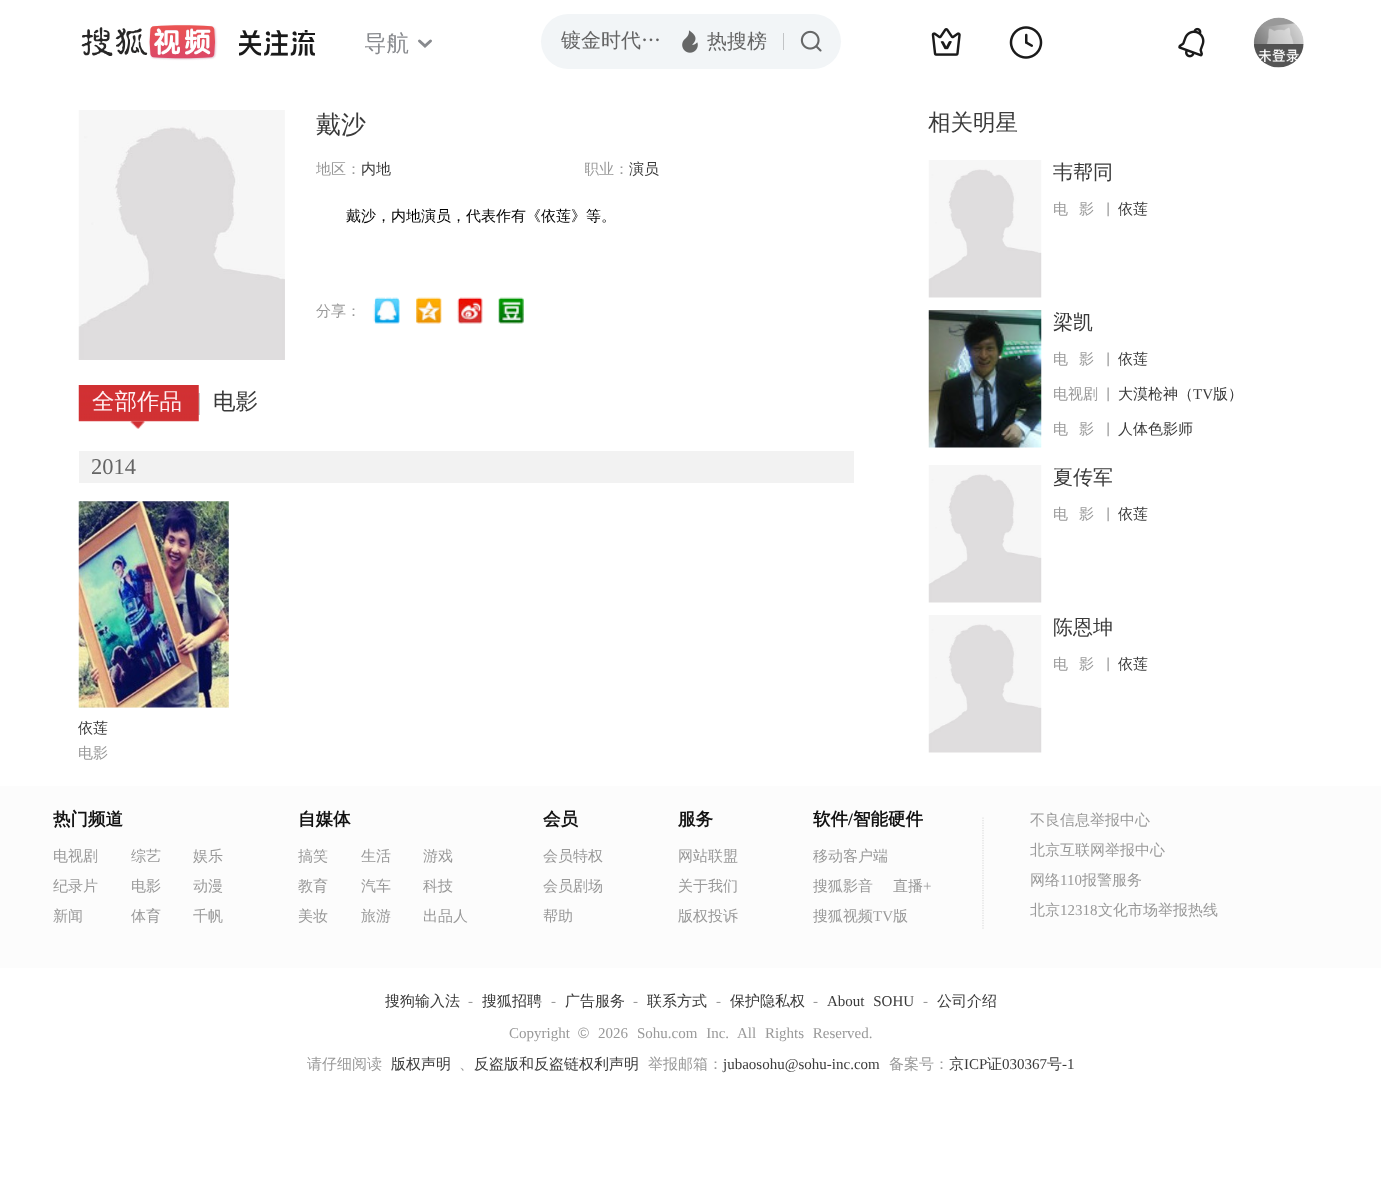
<!DOCTYPE html>
<meta charset="utf-8">
<style>body { margin: 0 } canvas { display: block }</style>
<canvas id="canvas" width="1381" height="1190"></canvas>
<script type="module">
  const canvas = document.getElementById("canvas");
  const ctx = canvas.getContext("2d");
  ctx.miterLimit = 4;
  ctx.fontKerning = "normal";
  async function loadImage(src) {
    const img = new Image();
    img.src = src;
    await img.decode();
    return img;
  }

  ctx.fillStyle = "#ffffff";
  ctx.fillRect(0, 0, 1381, 1190);
  ctx.drawImage(await loadImage("img1.png"), 81, 24, 137, 37);
  ctx.drawImage(await loadImage("img2.png"), 239, 30, 76, 26);
  ctx.font = "500 22.5px WenQuanYi Zen Hei";
  ctx.fillStyle = "#888a8e";
  ctx.fillText("导航", 364, 51);
  ctx.beginPath();
  ctx.moveTo(419.5, 41);
  ctx.lineTo(425, 46);
  ctx.lineTo(430.5, 41);
  ctx.strokeStyle = "#888a8e";
  ctx.lineWidth = 3;
  ctx.lineCap = "round";
  ctx.stroke();
  ctx.fillStyle = "#f2f5f7";
  ctx.beginPath();
  ctx.roundRect(541, 14, 300, 55, 27.5);
  ctx.fill();
  ctx.font = "500 20px WenQuanYi Zen Hei";
  ctx.fillStyle = "#646464";
  ctx.fillText("镀金时代…", 561, 47);
  ctx.drawImage(await loadImage("img3.png"), 682, 30, 16, 23);
  ctx.fillText("热搜榜", 707, 48);
  ctx.fillStyle = "#c2c4c6";
  ctx.fillRect(783, 33, 1, 17);
  ctx.drawImage(await loadImage("img4.png"), 800, 30, 22, 22);
  ctx.drawImage(await loadImage("img5.png"), 931, 28, 30, 28);
  ctx.drawImage(await loadImage("img6.png"), 1009, 26, 34, 33);
  ctx.drawImage(await loadImage("img7.png"), 1178, 27, 27, 31);
  ctx.drawImage(await loadImage("img8.png"), 1253, 17, 51, 51);
  ctx.drawImage(await loadImage("img9.png"), 78, 110, 207, 250);
  ctx.font = "500 25px WenQuanYi Zen Hei";
  ctx.fillStyle = "#3a3a3a";
  ctx.fillText("戴沙", 316, 133);
  ctx.font = "500 15px WenQuanYi Zen Hei";
  ctx.fillStyle = "#999999";
  ctx.fillText("地区：", 316, 174);
  ctx.fillStyle = "#3a3a3a";
  ctx.fillText("内地", 361, 174);
  ctx.save();
  ctx.beginPath();
  ctx.rect(585, 158, 263, 22);
  ctx.clip();
  ctx.fillStyle = "#999999";
  ctx.fillText("职业：", 584, 174);
  ctx.restore();
  ctx.fillText("演员", 629, 174);
  ctx.fillStyle = "#000000";
  ctx.fillText("戴沙，内地演员，代表作有《依莲》等。", 346, 221);
  ctx.fillStyle = "#999999";
  ctx.fillText("分享：", 316, 316);
  ctx.drawImage(await loadImage("img10.png"), 373, 297, 27, 27);
  ctx.drawImage(await loadImage("img11.png"), 416, 297, 26, 27);
  ctx.drawImage(await loadImage("img12.png"), 457, 297, 26, 27);
  ctx.drawImage(await loadImage("img13.png"), 498, 297, 26, 27);
  ctx.fillStyle = "#cacaca";
  ctx.fillRect(198, 393, 2, 22);
  ctx.drawImage(await loadImage("img14.png"), 78, 385, 121, 37);
  ctx.font = "500 22.5px WenQuanYi Zen Hei";
  ctx.fillStyle = "#fff0f3";
  ctx.fillText("全部作品", 92, 409);
  ctx.drawImage(await loadImage("img15.png"), 130, 421, 15, 8);
  ctx.fillStyle = "#3a3a3a";
  ctx.fillText("电影", 213, 409);
  ctx.fillStyle = "#f2f2f2";
  ctx.fillRect(79, 451, 775, 32);
  ctx.font = "22.5px Liberation Serif";
  ctx.fillStyle = "#646464";
  ctx.fillText("2014", 91, 474);
  ctx.fillStyle = "#f0f0f0";
  ctx.fillRect(79, 501, 150, 207);
  ctx.drawImage(await loadImage("img16.png"), 78, 501, 151, 207);
  ctx.font = "500 15px WenQuanYi Zen Hei";
  ctx.fillStyle = "#3a3a3a";
  ctx.fillText("依莲", 78, 733);
  ctx.fillStyle = "#999999";
  ctx.fillText("电影", 78, 758);
  ctx.font = "500 22.5px WenQuanYi Zen Hei";
  ctx.fillStyle = "#3a3a3a";
  ctx.fillText("相关明星", 928, 130);
  ctx.drawImage(await loadImage("img17.png"), 928, 160, 114, 138);
  ctx.font = "500 20px WenQuanYi Zen Hei";
  ctx.fillText("韦帮同", 1053, 179);
  ctx.drawImage(await loadImage("img18.png"), 1107, 202, 2, 15);
  ctx.font = "500 15px WenQuanYi Zen Hei";
  ctx.fillStyle = "#999999";
  ctx.fillText("电", 1053, 214);
  ctx.fillText("影", 1079, 214);
  ctx.fillStyle = "#3a3a3a";
  ctx.fillText("依莲", 1118, 214);
  ctx.drawImage(await loadImage("img19.png"), 928, 310, 114, 138);
  ctx.font = "500 20px WenQuanYi Zen Hei";
  ctx.fillText("梁凯", 1053, 329);
  ctx.drawImage(await loadImage("img18.png"), 1107, 352, 2, 15);
  ctx.font = "500 15px WenQuanYi Zen Hei";
  ctx.fillStyle = "#999999";
  ctx.fillText("电", 1053, 364);
  ctx.fillText("影", 1079, 364);
  ctx.fillStyle = "#3a3a3a";
  ctx.fillText("依莲", 1118, 364);
  ctx.drawImage(await loadImage("img18.png"), 1107, 387, 2, 15);
  ctx.fillStyle = "#999999";
  ctx.fillText("电视剧", 1053, 399);
  ctx.fillStyle = "#3a3a3a";
  ctx.fillText("大漠枪神（", 1118, 399);
  ctx.font = "15px Liberation Serif";
  ctx.fillText("TV", 1193, 399);
  ctx.font = "500 15px WenQuanYi Zen Hei";
  ctx.fillText("版）", 1213, 399);
  ctx.drawImage(await loadImage("img18.png"), 1107, 422, 2, 15);
  ctx.fillStyle = "#999999";
  ctx.fillText("电", 1053, 434);
  ctx.fillText("影", 1079, 434);
  ctx.fillStyle = "#3a3a3a";
  ctx.fillText("人体色影师", 1118, 434);
  ctx.drawImage(await loadImage("img17.png"), 928, 465, 114, 138);
  ctx.font = "500 20px WenQuanYi Zen Hei";
  ctx.fillText("夏传军", 1053, 484);
  ctx.drawImage(await loadImage("img18.png"), 1107, 507, 2, 15);
  ctx.font = "500 15px WenQuanYi Zen Hei";
  ctx.fillStyle = "#999999";
  ctx.fillText("电", 1053, 519);
  ctx.fillText("影", 1079, 519);
  ctx.fillStyle = "#3a3a3a";
  ctx.fillText("依莲", 1118, 519);
  ctx.drawImage(await loadImage("img17.png"), 928, 615, 114, 138);
  ctx.font = "500 20px WenQuanYi Zen Hei";
  ctx.fillText("陈恩坤", 1053, 634);
  ctx.drawImage(await loadImage("img18.png"), 1107, 657, 2, 15);
  ctx.font = "500 15px WenQuanYi Zen Hei";
  ctx.fillStyle = "#999999";
  ctx.fillText("电", 1053, 669);
  ctx.fillText("影", 1079, 669);
  ctx.fillStyle = "#3a3a3a";
  ctx.fillText("依莲", 1118, 669);
  ctx.fillStyle = "#fcfcfc";
  ctx.fillRect(0, 786, 1381, 182);
  ctx.font = "bold 17.5px WenQuanYi Zen Hei";
  ctx.fillStyle = "#111111";
  ctx.fillText("热门频道", 53, 825);
  ctx.font = "500 15px WenQuanYi Zen Hei";
  ctx.fillStyle = "#999999";
  ctx.fillText("电视剧", 53, 861);
  ctx.fillText("纪录片", 53, 891);
  ctx.fillText("新闻", 53, 921);
  ctx.fillText("综艺", 131, 861);
  ctx.fillText("电影", 131, 891);
  ctx.fillText("体育", 131, 921);
  ctx.fillText("娱乐", 193, 861);
  ctx.fillText("动漫", 193, 891);
  ctx.fillText("千帆", 193, 921);
  ctx.font = "bold 17.5px WenQuanYi Zen Hei";
  ctx.fillStyle = "#111111";
  ctx.fillText("自媒体", 298, 825);
  ctx.font = "500 15px WenQuanYi Zen Hei";
  ctx.fillStyle = "#999999";
  ctx.fillText("搞笑", 298, 861);
  ctx.fillText("教育", 298, 891);
  ctx.fillText("美妆", 298, 921);
  ctx.fillText("生活", 361, 861);
  ctx.fillText("汽车", 361, 891);
  ctx.fillText("旅游", 361, 921);
  ctx.fillText("游戏", 423, 861);
  ctx.fillText("科技", 423, 891);
  ctx.fillText("出品人", 423, 921);
  ctx.font = "bold 17.5px WenQuanYi Zen Hei";
  ctx.fillStyle = "#111111";
  ctx.fillText("会员", 543, 825);
  ctx.font = "500 15px WenQuanYi Zen Hei";
  ctx.fillStyle = "#999999";
  ctx.fillText("会员特权", 543, 861);
  ctx.fillText("会员剧场", 543, 891);
  ctx.fillText("帮助", 543, 921);
  ctx.font = "bold 17.5px WenQuanYi Zen Hei";
  ctx.fillStyle = "#111111";
  ctx.fillText("服务", 678, 825);
  ctx.font = "500 15px WenQuanYi Zen Hei";
  ctx.fillStyle = "#999999";
  ctx.fillText("网站联盟", 678, 861);
  ctx.fillText("关于我们", 678, 891);
  ctx.fillText("版权投诉", 678, 921);
  ctx.font = "bold 17.5px WenQuanYi Zen Hei";
  ctx.fillStyle = "#111111";
  ctx.fillText("软件", 813, 825);
  ctx.font = "bold 17.5px Liberation Serif";
  ctx.fillText("/", 848, 825);
  ctx.font = "bold 17.5px WenQuanYi Zen Hei";
  ctx.fillText("智能硬件", 853, 825);
  ctx.font = "500 15px WenQuanYi Zen Hei";
  ctx.fillStyle = "#999999";
  ctx.fillText("移动客户端", 813, 861);
  ctx.fillText("搜狐影音", 813, 891);
  ctx.fillText("直播", 893, 891);
  ctx.font = "15px Liberation Serif";
  ctx.fillText("+", 923, 891);
  ctx.font = "500 15px WenQuanYi Zen Hei";
  ctx.fillText("搜狐视频", 813, 921);
  ctx.font = "15px Liberation Serif";
  ctx.fillText("TV", 873, 921);
  ctx.font = "500 15px WenQuanYi Zen Hei";
  ctx.fillText("版", 893, 921);
  ctx.beginPath();
  ctx.moveTo(983, 817.5);
  ctx.lineTo(983, 930);
  ctx.strokeStyle = "#dddddd";
  ctx.lineWidth = 1.2;
  ctx.lineCap = "butt";
  ctx.setLineDash([1.25, 1.25]);
  ctx.stroke();
  ctx.fillText("不良信息举报中心", 1030, 825);
  ctx.fillText("北京互联网举报中心", 1030, 855);
  ctx.fillText("网络", 1030, 885);
  ctx.font = "15px Liberation Serif";
  ctx.fillText("110", 1060, 885);
  ctx.font = "500 15px WenQuanYi Zen Hei";
  ctx.fillText("报警服务", 1082, 885);
  ctx.fillText("北京", 1030, 915);
  ctx.font = "15px Liberation Serif";
  ctx.fillText("12318", 1060, 915);
  ctx.font = "500 15px WenQuanYi Zen Hei";
  ctx.fillText("文化市场举报热线", 1098, 915);
  ctx.fillStyle = "#3a3a3a";
  ctx.fillText("搜狗输入法", 385, 1006);
  ctx.font = "15px Liberation Serif";
  ctx.fillStyle = "#999999";
  ctx.fillText("-", 468, 1006);
  ctx.font = "500 15px WenQuanYi Zen Hei";
  ctx.fillStyle = "#3a3a3a";
  ctx.fillText("搜狐招聘", 482, 1006);
  ctx.font = "15px Liberation Serif";
  ctx.fillStyle = "#999999";
  ctx.fillText("-", 551, 1006);
  ctx.font = "500 15px WenQuanYi Zen Hei";
  ctx.fillStyle = "#3a3a3a";
  ctx.fillText("广告服务", 565, 1006);
  ctx.font = "15px Liberation Serif";
  ctx.fillStyle = "#999999";
  ctx.fillText("-", 633, 1006);
  ctx.font = "500 15px WenQuanYi Zen Hei";
  ctx.fillStyle = "#3a3a3a";
  ctx.fillText("联系方式", 647, 1006);
  ctx.font = "15px Liberation Serif";
  ctx.fillStyle = "#999999";
  ctx.fillText("-", 716, 1006);
  ctx.font = "500 15px WenQuanYi Zen Hei";
  ctx.fillStyle = "#3a3a3a";
  ctx.fillText("保护隐私权", 730, 1006);
  ctx.font = "15px Liberation Serif";
  ctx.fillStyle = "#999999";
  ctx.fillText("-", 813, 1006);
  ctx.wordSpacing = "5px";
  ctx.fillStyle = "#3a3a3a";
  ctx.fillText("About SOHU", 827, 1006);
  ctx.wordSpacing = "0px";
  ctx.fillStyle = "#999999";
  ctx.fillText("-", 923, 1006);
  ctx.font = "500 15px WenQuanYi Zen Hei";
  ctx.fillStyle = "#3a3a3a";
  ctx.fillText("公司介绍", 937, 1006);
  ctx.font = "15px Liberation Serif";
  ctx.fillStyle = "#999999";
  ctx.fillText("Copyright", 509, 1038);
  ctx.font = "15px Liberation Sans";
  ctx.fillText("©", 578, 1038);
  ctx.font = "15px Liberation Serif";
  ctx.fillText("2026", 598, 1038);
  ctx.wordSpacing = "5px";
  ctx.fillText("Sohu.com Inc. All Rights Reserved.", 637, 1038);
  ctx.wordSpacing = "0px";
  ctx.font = "500 15px WenQuanYi Zen Hei";
  ctx.fillText("请仔细阅读", 307, 1069);
  ctx.fillStyle = "#3a3a3a";
  ctx.fillText("版权声明", 391, 1069);
  ctx.fillStyle = "#999999";
  ctx.fillText("、", 459, 1069);
  ctx.fillStyle = "#3a3a3a";
  ctx.fillText("反盗版和反盗链权利声明", 474, 1069);
  ctx.fillStyle = "#999999";
  ctx.fillText("举报邮箱：", 648, 1069);
  ctx.font = "15px Liberation Serif";
  ctx.fillStyle = "#3a3a3a";
  ctx.fillText("jubaosohu@sohu-inc.com", 723, 1069);
  ctx.font = "500 15px WenQuanYi Zen Hei";
  ctx.fillStyle = "#999999";
  ctx.fillText("备案号：", 889, 1069);
  ctx.fillStyle = "#3a3a3a";
  ctx.fillText("京", 949, 1069);
  ctx.font = "15px Liberation Serif";
  ctx.fillText("ICP", 964, 1069);
  ctx.font = "500 15px WenQuanYi Zen Hei";
  ctx.fillText("证", 987, 1069);
  ctx.font = "15px Liberation Serif";
  ctx.fillText("030367", 1002, 1069);
  ctx.font = "500 15px WenQuanYi Zen Hei";
  ctx.fillText("号", 1047, 1069);
  ctx.font = "15px Liberation Serif";
  ctx.fillText("-1", 1062, 1069);
</script>
